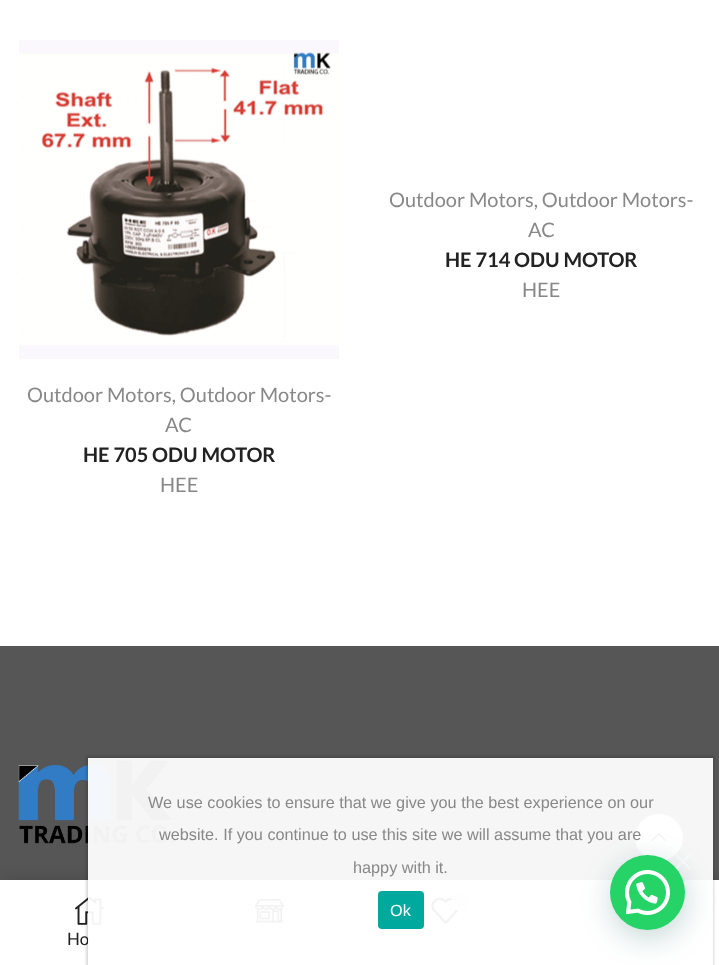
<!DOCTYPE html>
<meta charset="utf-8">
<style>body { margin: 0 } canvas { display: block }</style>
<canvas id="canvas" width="719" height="965"></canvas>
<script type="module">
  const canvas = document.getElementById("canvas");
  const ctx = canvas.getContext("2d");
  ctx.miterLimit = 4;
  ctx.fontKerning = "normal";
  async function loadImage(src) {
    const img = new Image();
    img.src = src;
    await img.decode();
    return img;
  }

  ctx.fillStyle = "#ffffff";
  ctx.fillRect(0, 0, 719, 965);
  ctx.font = "20px Lato";
  ctx.fillStyle = "#888888";
  ctx.fillText("Outdoor Motors, Outdoor Motors-", 389, 207);
  ctx.fillText("AC", 528, 237);
  ctx.font = "bold 20px Lato";
  ctx.fillStyle = "#222222";
  ctx.fillText("HE 714 ODU MOTOR", 445, 267);
  ctx.font = "20px Lato";
  ctx.fillStyle = "#888888";
  ctx.fillText("HEE", 522, 297);
  ctx.drawImage(await loadImage("img1.png"), 19, 40, 320, 319);
  ctx.fillText("Outdoor Motors, Outdoor Motors-", 27, 402);
  ctx.fillText("AC", 165, 432);
  ctx.font = "bold 20px Lato";
  ctx.fillStyle = "#222222";
  ctx.fillText("HE 705 ODU MOTOR", 83, 462);
  ctx.font = "20px Lato";
  ctx.fillStyle = "#888888";
  ctx.fillText("HEE", 160, 492);
  ctx.fillStyle = "#565656";
  ctx.fillRect(0, 646, 719, 234);
  ctx.drawImage(await loadImage("img2.png"), 18, 760, 157, 84);
  ctx.fillStyle = "rgba(0, 0, 0, 0.15)";
  ctx.filter = "blur(7.5px)";
  ctx.beginPath();
  ctx.rect(3, 880, 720, 85);
  ctx.fill();
  ctx.filter = "none";
  ctx.fillStyle = "#ffffff";
  ctx.beginPath();
  ctx.roundRect(635.5, 814.5, 47, 46, 23);
  ctx.fill();
  ctx.strokeStyle = "#e1e1e1";
  ctx.stroke();
  ctx.drawImage(await loadImage("img3.png"), 651, 833, 16, 9);
  ctx.fillRect(0, 880, 719, 85);
  ctx.drawImage(await loadImage("img4.png"), 255, 898, 29, 25);
  ctx.drawImage(await loadImage("img5.png"), 431, 897, 28, 27);
  ctx.fillStyle = "#e1e1e1";
  ctx.beginPath();
  ctx.roundRect(451, 894, 18, 17, 8.5);
  ctx.fill();
  ctx.drawImage(await loadImage("img6.png"), 615, 911, 3, 4);
  ctx.drawImage(await loadImage("img7.png"), 75, 896, 29, 29);
  ctx.font = "17px Lato";
  ctx.fillStyle = "#222222";
  ctx.fillText("Ho", 67, 945);
  ctx.save();
  ctx.beginPath();
  ctx.moveTo(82, 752);
  ctx.lineTo(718, 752);
  ctx.lineTo(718, 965);
  ctx.lineTo(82, 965);
  ctx.closePath();
  ctx.moveTo(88, 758);
  ctx.lineTo(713, 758);
  ctx.lineTo(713, 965);
  ctx.lineTo(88, 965);
  ctx.closePath();
  ctx.clip("evenodd");
  ctx.fillStyle = "rgba(0, 0, 0, 0.15)";
  ctx.filter = "blur(1px)";
  ctx.beginPath();
  ctx.rect(86, 756, 628, 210);
  ctx.fill();
  ctx.filter = "none";
  ctx.restore();
  ctx.fillStyle = "rgba(255, 255, 255, 0.95)";
  ctx.fillRect(88, 758, 625, 207);
  ctx.font = "16.25px Liberation Sans";
  ctx.fillStyle = "#888888";
  ctx.fillText("We use cookies to ensure that we give you the best experience on our", 148, 808);
  ctx.fillText("website. If you continue to use this site we will assume that you are", 159, 840);
  ctx.fillText("happy with it.", 353, 873);
  ctx.fillStyle = "#fbfbfb";
  ctx.beginPath();
  ctx.moveTo(688.5, 854);
  ctx.lineTo(690.5, 856);
  ctx.lineTo(677, 869);
  ctx.lineTo(675.5, 867.5);
  ctx.closePath();
  ctx.fill();
  ctx.beginPath();
  ctx.moveTo(675.5, 856);
  ctx.lineTo(677, 854);
  ctx.lineTo(690.5, 867.5);
  ctx.lineTo(688.5, 869);
  ctx.closePath();
  ctx.fill();
  ctx.fillStyle = "#00a99d";
  ctx.beginPath();
  ctx.roundRect(378, 891, 46, 38, 4);
  ctx.fill();
  ctx.fillStyle = "#ffffff";
  ctx.fillText("Ok", 390, 916);
  ctx.fillStyle = "rgba(7, 94, 84, 0.24)";
  ctx.filter = "blur(15px)";
  ctx.beginPath();
  ctx.roundRect(611, 863, 75, 75, 37.5);
  ctx.fill();
  ctx.filter = "none";
  ctx.fillStyle = "#25d366";
  ctx.beginPath();
  ctx.arc(647.5, 892.5, 37.5, 0, Math.PI * 2);
  ctx.fill();
  ctx.drawImage(await loadImage("img8.png"), 625, 870, 45, 45);
</script>
